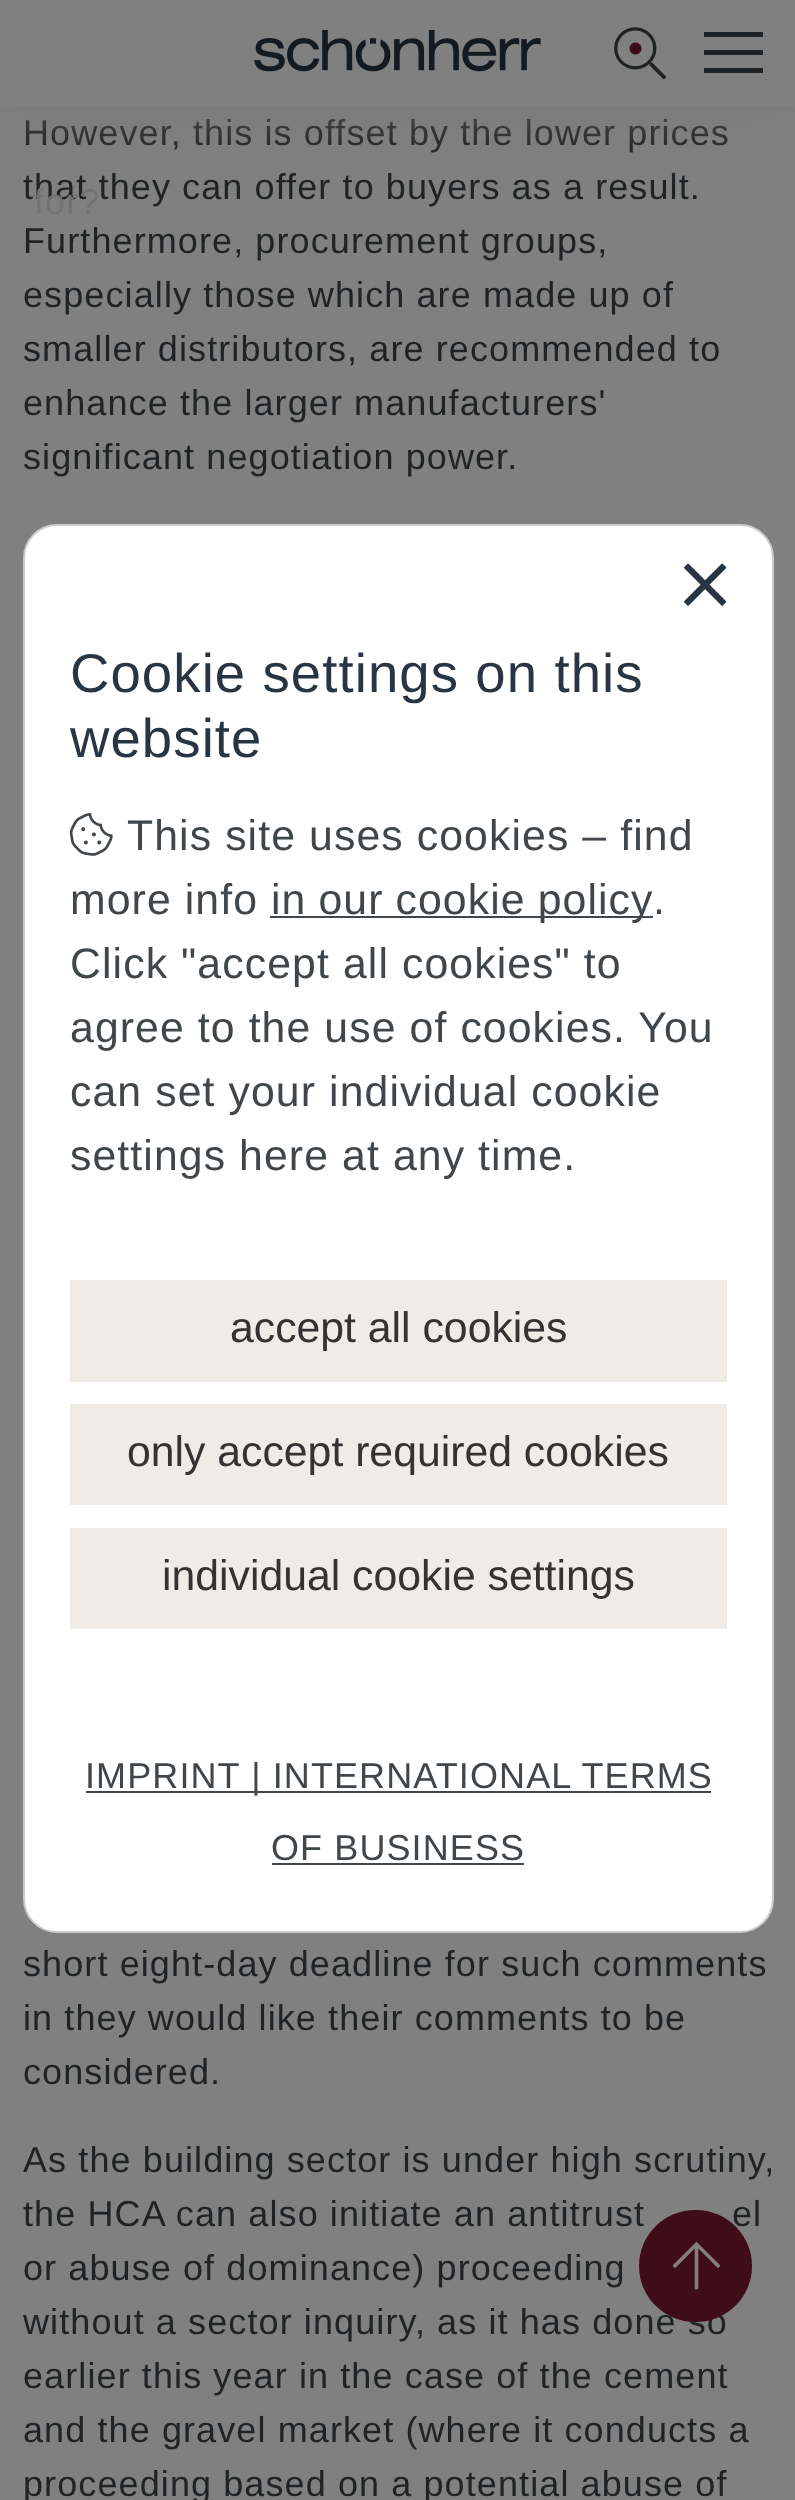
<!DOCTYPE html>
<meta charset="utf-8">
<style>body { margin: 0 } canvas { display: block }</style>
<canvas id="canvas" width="795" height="2500"></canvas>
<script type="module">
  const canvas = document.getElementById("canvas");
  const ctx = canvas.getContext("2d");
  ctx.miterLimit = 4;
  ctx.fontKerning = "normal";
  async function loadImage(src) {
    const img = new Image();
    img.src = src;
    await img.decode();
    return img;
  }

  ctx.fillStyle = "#808080";
  ctx.fillRect(0, 0, 795, 2500);
  ctx.letterSpacing = "1.1px";
  ctx.font = "36px Liberation Sans";
  ctx.fillStyle = "#202325";
  ctx.fillText("However, this is offset by the lower prices", 23, 145);
  ctx.fillText("that they can offer to buyers as a result.", 23, 199);
  ctx.fillText("Furthermore, procurement groups,", 23, 253);
  ctx.fillText("especially those which are made up of", 23, 307);
  ctx.fillText("smaller distributors, are recommended to", 23, 361);
  ctx.fillText("enhance the larger manufacturers'", 23, 415);
  ctx.fillText("significant negotiation power.", 23, 469);
  ctx.fillText("short eight-day deadline for such comments", 23, 1976);
  ctx.fillText("in they would like their comments to be", 23, 2030);
  ctx.fillText("considered.", 23, 2084);
  ctx.fillText("As the building sector is under high scrutiny,", 23, 2172);
  ctx.fillText("the HCA can also initiate an antitrust", 23, 2226);
  ctx.fillText("el", 732, 2226);
  ctx.fillText("or abuse of dominance) proceeding", 23, 2280);
  ctx.fillText("without a sector inquiry, as it has done so", 23, 2334);
  ctx.fillText("earlier this year in the case of the cement", 23, 2388);
  ctx.fillText("and the gravel market (where it conducts a", 23, 2442);
  ctx.fillText("proceeding based on a potential abuse of", 23, 2496);
  ctx.fillStyle = "#797878";
  ctx.filter = "blur(34px)";
  ctx.beginPath();
  ctx.rect(0, 0, 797, 106);
  ctx.fill();
  ctx.filter = "none";
  ctx.fillStyle = "#808080";
  ctx.fillRect(0, 0, 795, 106);
  ctx.drawImage(await loadImage("img1.png"), 254, 29, 287, 43);
  ctx.drawImage(await loadImage("img2.png"), 614, 27, 53, 53);
  ctx.fillStyle = "#202325";
  ctx.fillRect(704, 32, 59, 5);
  ctx.fillRect(704, 50, 59, 5);
  ctx.fillRect(704, 68, 59, 5);
  ctx.fillStyle = "#737373";
  ctx.fillText("for?", 34, 214);
  ctx.fillStyle = "#ffffff";
  ctx.beginPath();
  ctx.roundRect(24, 525, 749, 1407, 33);
  ctx.fill();
  ctx.strokeStyle = "#cccccc";
  ctx.lineWidth = 2;
  ctx.stroke();
  ctx.drawImage(await loadImage("img3.png"), 684, 563, 43, 43);
  ctx.font = "54.5px Liberation Sans";
  ctx.fillStyle = "#283543";
  ctx.fillText("Cookie settings on this", 70, 692);
  ctx.fillText("website", 70, 757);
  ctx.drawImage(await loadImage("img4.png"), 69, 813, 44, 43);
  ctx.font = "42.75px Liberation Sans";
  ctx.fillStyle = "#404649";
  ctx.fillText("This site uses cookies – find", 127, 850);
  ctx.fillText("more info", 70, 914);
  ctx.fillRect(270, 916, 383, 2);
  ctx.wordSpacing = "-1px";
  ctx.fillText("in our cookie policy", 271, 914);
  ctx.wordSpacing = "0px";
  ctx.fillText(".", 653, 914);
  ctx.fillText("Click \"accept all cookies\" to", 70, 978);
  ctx.fillText("agree to the use of cookies. You", 70, 1042);
  ctx.fillText("can set your individual cookie", 70, 1106);
  ctx.fillText("settings here at any time.", 70, 1170);
  ctx.fillStyle = "#efece7";
  ctx.fillRect(70, 1280, 657, 102);
  ctx.letterSpacing = "0px";
  ctx.fillStyle = "#333333";
  ctx.fillText("accept all cookies", 230, 1342);
  ctx.fillStyle = "#efece7";
  ctx.fillRect(70, 1404, 657, 101);
  ctx.fillStyle = "#333333";
  ctx.fillText("only accept required cookies", 127, 1466);
  ctx.fillStyle = "#efece7";
  ctx.fillRect(70, 1528, 657, 101);
  ctx.fillStyle = "#333333";
  ctx.fillText("individual cookie settings", 162, 1590);
  ctx.fillStyle = "#404649";
  ctx.fillRect(86, 1791, 625, 2);
  ctx.letterSpacing = "1.1px";
  ctx.font = "36px Liberation Sans";
  ctx.fillText("IMPRINT | INTERNATIONAL TERMS", 85, 1788);
  ctx.fillText("OF BUSINESS", 271, 1860);
  ctx.fillRect(272, 1863, 252, 2);
  ctx.fillStyle = "#3f0d19";
  ctx.beginPath();
  ctx.roundRect(639, 2210, 113, 112, 56);
  ctx.fill();
  ctx.drawImage(await loadImage("img5.png"), 672, 2242, 49, 48);
</script>
